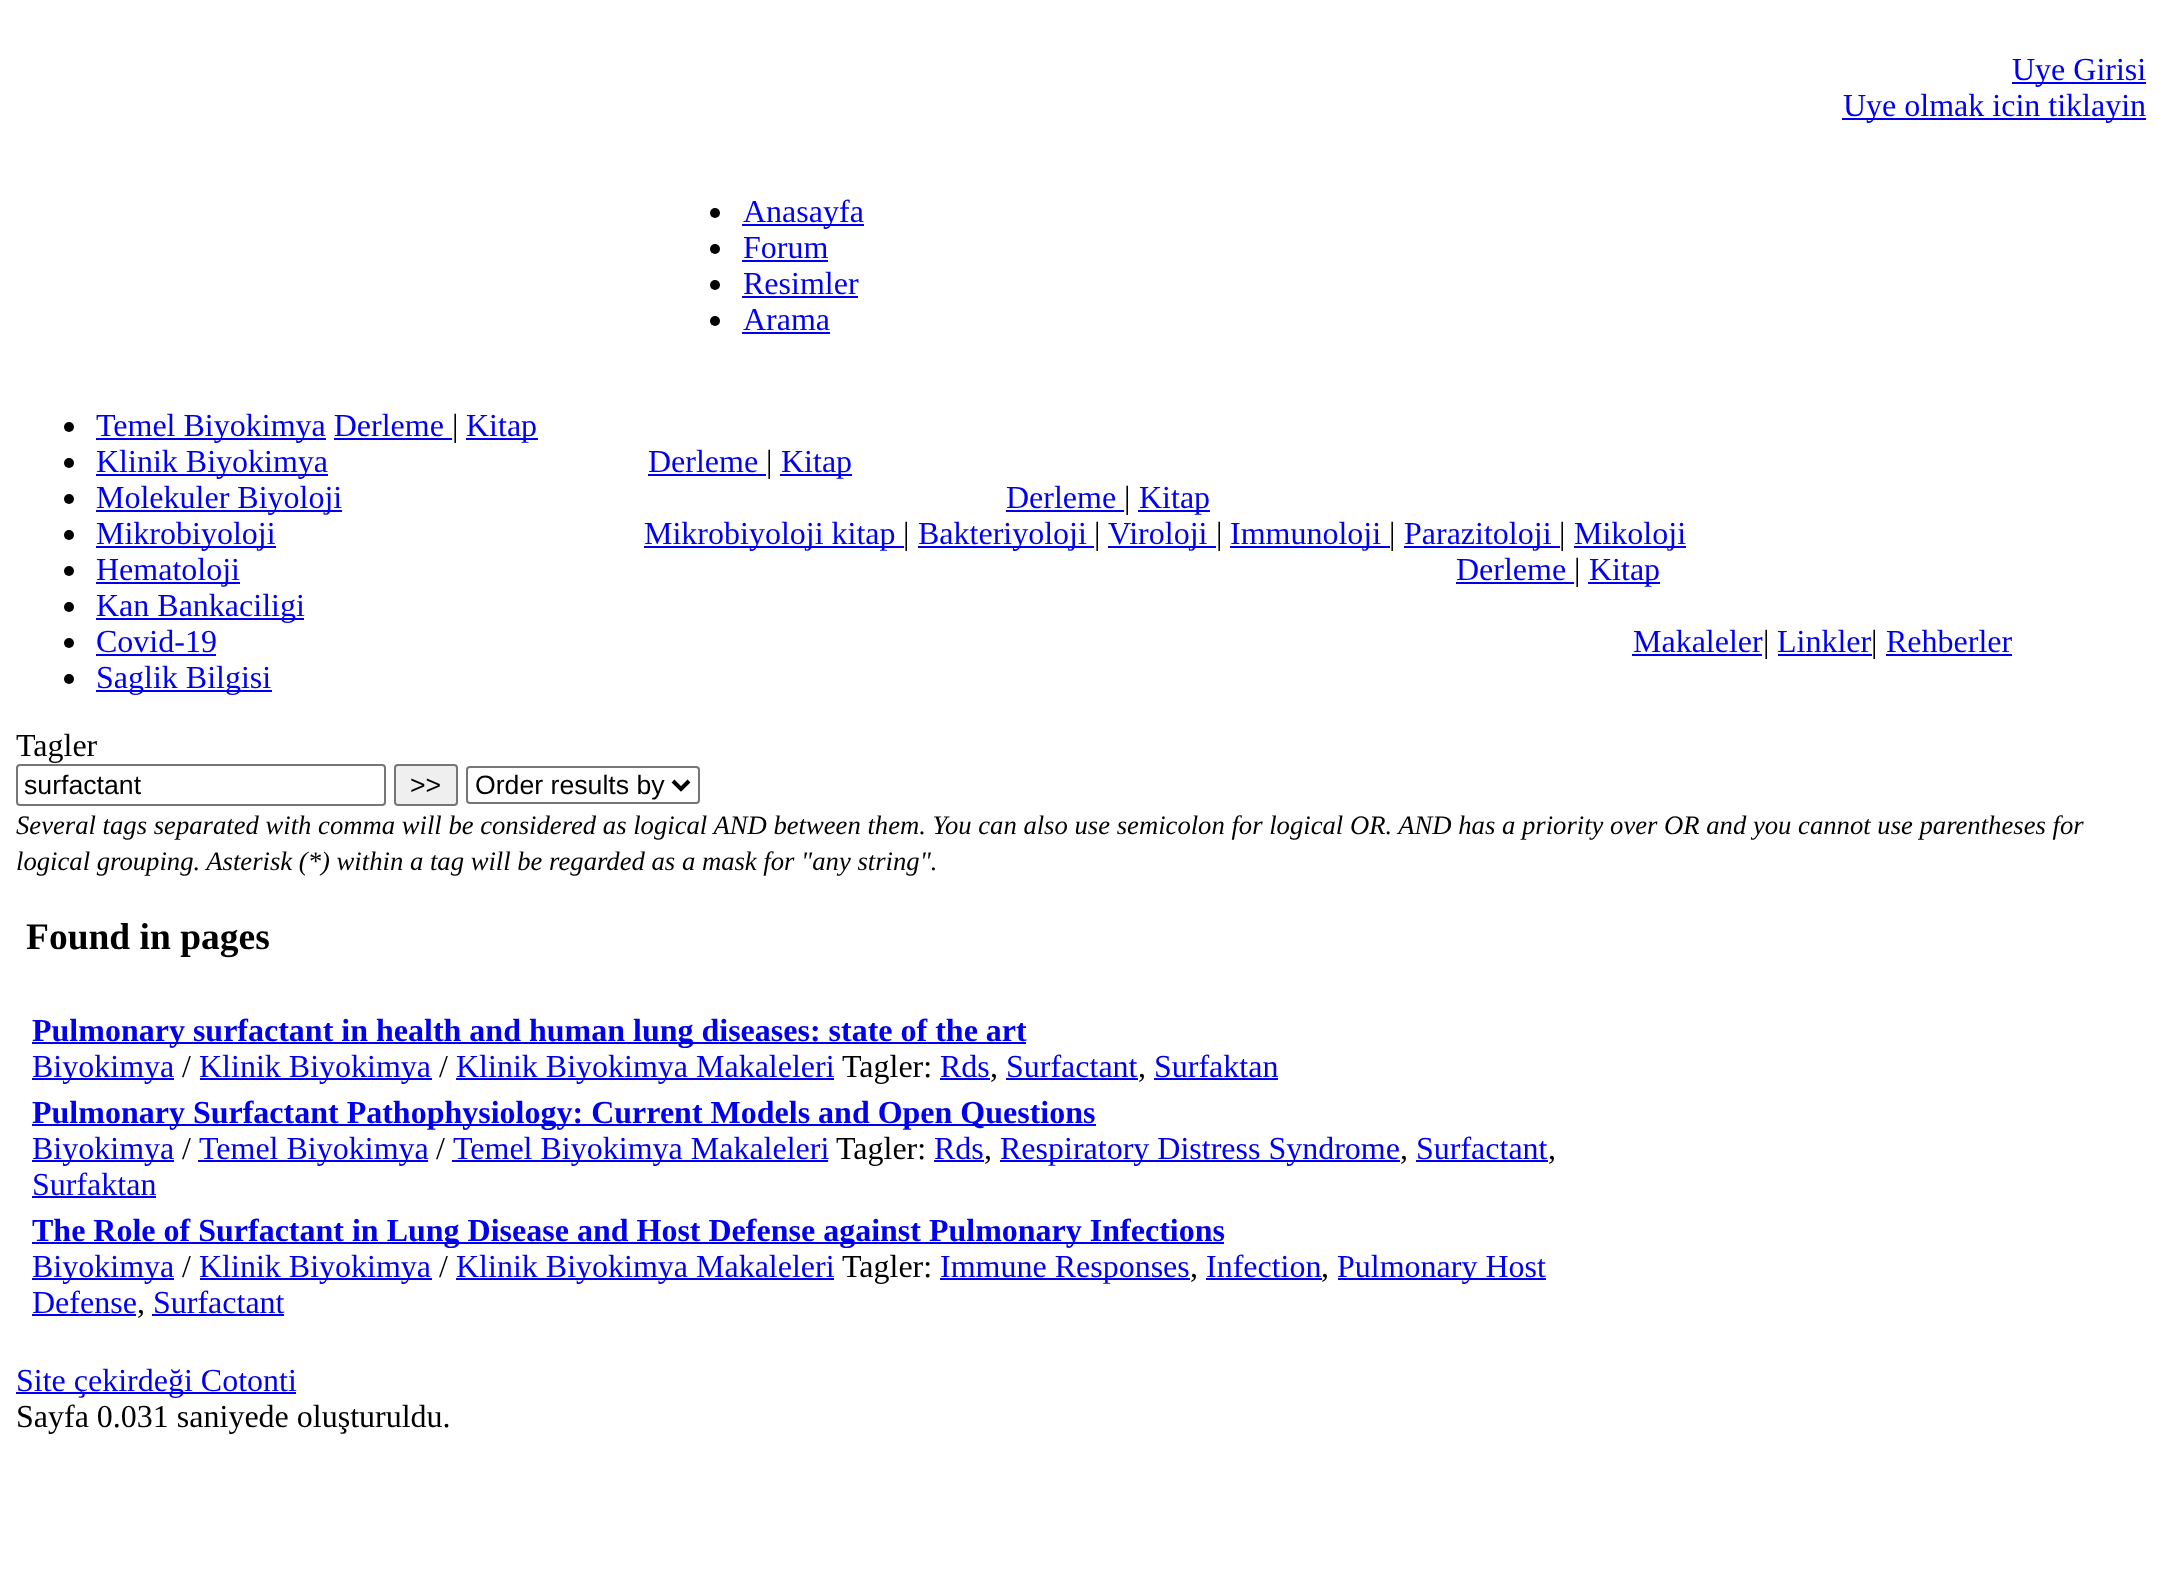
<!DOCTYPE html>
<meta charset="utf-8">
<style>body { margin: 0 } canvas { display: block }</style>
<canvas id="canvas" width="2166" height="1583"></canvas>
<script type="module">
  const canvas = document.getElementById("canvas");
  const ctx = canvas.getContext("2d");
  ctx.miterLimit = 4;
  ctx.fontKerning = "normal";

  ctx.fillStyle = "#ffffff";
  ctx.fillRect(0, 0, 2166, 1583);
  ctx.fillStyle = "#0000ee";
  ctx.fillRect(2012, 82, 134, 2);
  ctx.font = "32px Liberation Serif";
  ctx.fillText("Uye Girisi", 2012, 80);
  ctx.fillRect(1842, 118, 304, 2);
  ctx.fillText("Uye olmak icin tiklayin", 1843, 116);
  ctx.fillStyle = "#000000";
  ctx.beginPath();
  ctx.arc(715, 213, 5, 0, Math.PI * 2);
  ctx.fill();
  ctx.fillStyle = "#0000ee";
  ctx.fillRect(742, 224, 122, 2);
  ctx.fillText("Anasayfa", 743, 222);
  ctx.fillStyle = "#000000";
  ctx.beginPath();
  ctx.arc(715, 249, 5, 0, Math.PI * 2);
  ctx.fill();
  ctx.fillStyle = "#0000ee";
  ctx.fillText("Forum", 743, 258);
  ctx.fillRect(742, 260, 86, 2);
  ctx.fillStyle = "#000000";
  ctx.beginPath();
  ctx.arc(715, 285, 5, 0, Math.PI * 2);
  ctx.fill();
  ctx.fillStyle = "#0000ee";
  ctx.fillText("Resimler", 743, 294);
  ctx.fillRect(742, 296, 116, 2);
  ctx.fillStyle = "#000000";
  ctx.beginPath();
  ctx.arc(715, 321, 5, 0, Math.PI * 2);
  ctx.fill();
  ctx.fillStyle = "#0000ee";
  ctx.fillText("Arama", 743, 330);
  ctx.fillRect(742, 332, 88, 2);
  ctx.fillStyle = "#000000";
  ctx.beginPath();
  ctx.arc(69, 427, 5, 0, Math.PI * 2);
  ctx.fill();
  ctx.fillStyle = "#0000ee";
  ctx.fillRect(96, 438, 230, 2);
  ctx.fillText("Temel Biyokimya Derleme", 96, 436);
  ctx.fillStyle = "#000000";
  ctx.fillText("|", 452, 436);
  ctx.fillStyle = "#0000ee";
  ctx.fillRect(334, 438, 118, 2);
  ctx.fillRect(466, 438, 72, 2);
  ctx.fillText("Kitap", 466, 436);
  ctx.fillStyle = "#000000";
  ctx.beginPath();
  ctx.arc(69, 463, 5, 0, Math.PI * 2);
  ctx.fill();
  ctx.fillStyle = "#0000ee";
  ctx.fillRect(96, 474, 232, 2);
  ctx.fillText("Klinik Biyokimya", 96, 472);
  ctx.fillText("Derleme", 648, 472);
  ctx.fillStyle = "#000000";
  ctx.fillText("|", 766, 472);
  ctx.fillStyle = "#0000ee";
  ctx.fillRect(648, 474, 118, 2);
  ctx.fillRect(780, 474, 72, 2);
  ctx.fillText("Kitap", 781, 472);
  ctx.fillStyle = "#000000";
  ctx.beginPath();
  ctx.arc(69, 499, 5, 0, Math.PI * 2);
  ctx.fill();
  ctx.fillStyle = "#0000ee";
  ctx.fillRect(96, 510, 246, 2);
  ctx.fillText("Molekuler Biyoloji", 96, 508);
  ctx.fillText("Derleme", 1006, 508);
  ctx.fillStyle = "#000000";
  ctx.fillText("|", 1124, 508);
  ctx.fillStyle = "#0000ee";
  ctx.fillRect(1006, 510, 118, 2);
  ctx.fillRect(1138, 510, 72, 2);
  ctx.fillText("Kitap", 1139, 508);
  ctx.fillStyle = "#000000";
  ctx.beginPath();
  ctx.arc(69, 535, 5, 0, Math.PI * 2);
  ctx.fill();
  ctx.fillStyle = "#0000ee";
  ctx.fillRect(96, 546, 180, 2);
  ctx.fillText("Mikrobiyoloji", 96, 544);
  ctx.fillRect(644, 546, 260, 2);
  ctx.fillText("Mikrobiyoloji kitap", 644, 544);
  ctx.fillStyle = "#000000";
  ctx.fillText("|", 903, 544);
  ctx.fillStyle = "#0000ee";
  ctx.fillRect(918, 546, 176, 2);
  ctx.fillText("Bakteriyoloji", 918, 544);
  ctx.fillStyle = "#000000";
  ctx.fillText("|", 1094, 544);
  ctx.fillStyle = "#0000ee";
  ctx.fillRect(1108, 546, 108, 2);
  ctx.fillText("Viroloji", 1108, 544);
  ctx.fillStyle = "#000000";
  ctx.fillText("|", 1216, 544);
  ctx.fillStyle = "#0000ee";
  ctx.fillRect(1230, 546, 160, 2);
  ctx.fillText("Immunoloji", 1230, 544);
  ctx.fillStyle = "#000000";
  ctx.fillText("|", 1389, 544);
  ctx.fillStyle = "#0000ee";
  ctx.fillRect(1404, 546, 156, 2);
  ctx.fillText("Parazitoloji", 1404, 544);
  ctx.fillStyle = "#000000";
  ctx.fillText("|", 1559, 544);
  ctx.fillStyle = "#0000ee";
  ctx.fillRect(1574, 546, 112, 2);
  ctx.fillText("Mikoloji", 1574, 544);
  ctx.fillStyle = "#000000";
  ctx.beginPath();
  ctx.arc(69, 571, 5, 0, Math.PI * 2);
  ctx.fill();
  ctx.fillStyle = "#0000ee";
  ctx.fillRect(96, 582, 144, 2);
  ctx.fillText("Hematoloji", 96, 580);
  ctx.fillText("Derleme", 1456, 580);
  ctx.fillStyle = "#000000";
  ctx.fillText("|", 1574, 580);
  ctx.fillStyle = "#0000ee";
  ctx.fillRect(1456, 582, 118, 2);
  ctx.fillRect(1588, 582, 72, 2);
  ctx.fillText("Kitap", 1589, 580);
  ctx.fillStyle = "#000000";
  ctx.beginPath();
  ctx.arc(69, 607, 5, 0, Math.PI * 2);
  ctx.fill();
  ctx.fillStyle = "#0000ee";
  ctx.fillRect(96, 618, 208, 2);
  ctx.fillText("Kan Bankaciligi", 96, 616);
  ctx.fillStyle = "#000000";
  ctx.beginPath();
  ctx.arc(69, 643, 5, 0, Math.PI * 2);
  ctx.fill();
  ctx.fillStyle = "#0000ee";
  ctx.fillText("Covid-19", 96, 652);
  ctx.fillRect(96, 654, 120, 2);
  ctx.fillText("Makaleler", 1633, 652);
  ctx.fillStyle = "#000000";
  ctx.fillText("|", 1763, 652);
  ctx.fillStyle = "#0000ee";
  ctx.fillRect(1632, 654, 130, 2);
  ctx.fillText("Linkler", 1777, 652);
  ctx.fillStyle = "#000000";
  ctx.fillText("|", 1871, 652);
  ctx.fillStyle = "#0000ee";
  ctx.fillRect(1778, 654, 94, 2);
  ctx.fillText("Rehberler", 1886, 652);
  ctx.fillRect(1886, 654, 126, 2);
  ctx.fillStyle = "#000000";
  ctx.beginPath();
  ctx.arc(69, 679, 5, 0, Math.PI * 2);
  ctx.fill();
  ctx.fillStyle = "#0000ee";
  ctx.fillRect(96, 690, 176, 2);
  ctx.fillText("Saglik Bilgisi", 96, 688);
  ctx.fillStyle = "#000000";
  ctx.fillText("Tagler", 16, 756);
  ctx.beginPath();
  ctx.roundRect(17, 765, 368, 40, 3);
  ctx.strokeStyle = "#767676";
  ctx.lineWidth = 2;
  ctx.stroke();
  ctx.font = "26.67px Liberation Sans";
  ctx.fillText("surfactant", 24, 794);
  ctx.fillStyle = "#efefef";
  ctx.beginPath();
  ctx.roundRect(395, 765, 62, 40, 3);
  ctx.fill();
  ctx.stroke();
  ctx.fillStyle = "#000000";
  ctx.fillText(">>", 410, 794);
  ctx.beginPath();
  ctx.roundRect(467, 767, 232, 36, 3);
  ctx.stroke();
  ctx.beginPath();
  ctx.moveTo(673, 781);
  ctx.lineTo(681, 789);
  ctx.lineTo(689, 781);
  ctx.strokeStyle = "#000000";
  ctx.lineWidth = 4;
  ctx.stroke();
  ctx.fillText("Order results by", 475, 794);
  ctx.font = "italic 26.67px Liberation Serif";
  ctx.fillText("Several tags separated with comma will be considered as logical AND between them. You can also use semicolon for logical OR. AND has a priority over OR and you cannot use parentheses for", 16, 834);
  ctx.fillText("logical grouping. Asterisk (*) within a tag will be regarded as a mask for \"any string\".", 16, 870);
  ctx.font = "bold 37.5px Liberation Serif";
  ctx.fillText("Found in pages", 26, 949);
  ctx.fillStyle = "#0000ee";
  ctx.fillRect(32, 1042, 994, 2);
  ctx.font = "bold 32px Liberation Serif";
  ctx.fillText("Pulmonary surfactant in health and human lung diseases: state of the art", 32, 1041);
  ctx.fillRect(32, 1078, 142, 2);
  ctx.font = "32px Liberation Serif";
  ctx.fillText("Biyokimya", 32, 1077);
  ctx.fillStyle = "#000000";
  ctx.fillText("/", 182, 1077);
  ctx.fillStyle = "#0000ee";
  ctx.fillRect(200, 1078, 232, 2);
  ctx.fillText("Klinik Biyokimya", 199, 1077);
  ctx.fillStyle = "#000000";
  ctx.fillText("/", 439, 1077);
  ctx.fillStyle = "#0000ee";
  ctx.fillRect(456, 1078, 378, 2);
  ctx.fillText("Klinik Biyokimya Makaleleri", 456, 1077);
  ctx.fillStyle = "#000000";
  ctx.fillText("Tagler:", 842, 1077);
  ctx.fillStyle = "#0000ee";
  ctx.fillText("Rds", 940, 1077);
  ctx.fillStyle = "#000000";
  ctx.fillText(",", 990, 1077);
  ctx.fillStyle = "#0000ee";
  ctx.fillRect(940, 1078, 50, 2);
  ctx.fillText("Surfactant", 1006, 1077);
  ctx.fillStyle = "#000000";
  ctx.fillText(",", 1138, 1077);
  ctx.fillStyle = "#0000ee";
  ctx.fillRect(1006, 1078, 132, 2);
  ctx.fillRect(1154, 1078, 124, 2);
  ctx.fillText("Surfaktan", 1154, 1077);
  ctx.fillRect(32, 1124, 1064, 2);
  ctx.font = "bold 32px Liberation Serif";
  ctx.fillText("Pulmonary Surfactant Pathophysiology: Current Models and Open Questions", 32, 1123);
  ctx.fillRect(32, 1160, 142, 2);
  ctx.font = "32px Liberation Serif";
  ctx.fillText("Biyokimya", 32, 1159);
  ctx.fillStyle = "#000000";
  ctx.fillText("/", 182, 1159);
  ctx.fillStyle = "#0000ee";
  ctx.fillRect(198, 1160, 230, 2);
  ctx.fillText("Temel Biyokimya", 199, 1159);
  ctx.fillStyle = "#000000";
  ctx.fillText("/", 436, 1159);
  ctx.fillStyle = "#0000ee";
  ctx.fillRect(452, 1160, 376, 2);
  ctx.fillText("Temel Biyokimya Makaleleri", 453, 1159);
  ctx.fillStyle = "#000000";
  ctx.fillText("Tagler:", 836, 1159);
  ctx.fillStyle = "#0000ee";
  ctx.fillText("Rds", 934, 1159);
  ctx.fillStyle = "#000000";
  ctx.fillText(",", 984, 1159);
  ctx.fillStyle = "#0000ee";
  ctx.fillRect(934, 1160, 50, 2);
  ctx.fillRect(1000, 1160, 400, 2);
  ctx.fillText("Respiratory Distress Syndrome", 1000, 1159);
  ctx.fillStyle = "#000000";
  ctx.fillText(",", 1400, 1159);
  ctx.fillStyle = "#0000ee";
  ctx.fillText("Surfactant", 1416, 1159);
  ctx.fillStyle = "#000000";
  ctx.fillText(",", 1548, 1159);
  ctx.fillStyle = "#0000ee";
  ctx.fillRect(1416, 1160, 132, 2);
  ctx.fillText("Surfaktan", 32, 1195);
  ctx.fillRect(32, 1196, 124, 2);
  ctx.fillRect(32, 1242, 1192, 2);
  ctx.font = "bold 32px Liberation Serif";
  ctx.fillText("The Role of Surfactant in Lung Disease and Host Defense against Pulmonary Infections", 32, 1241);
  ctx.fillRect(32, 1278, 142, 2);
  ctx.font = "32px Liberation Serif";
  ctx.fillText("Biyokimya", 32, 1277);
  ctx.fillStyle = "#000000";
  ctx.fillText("/", 182, 1277);
  ctx.fillStyle = "#0000ee";
  ctx.fillRect(200, 1278, 232, 2);
  ctx.fillText("Klinik Biyokimya", 199, 1277);
  ctx.fillStyle = "#000000";
  ctx.fillText("/", 439, 1277);
  ctx.fillStyle = "#0000ee";
  ctx.fillRect(456, 1278, 378, 2);
  ctx.fillText("Klinik Biyokimya Makaleleri", 456, 1277);
  ctx.fillStyle = "#000000";
  ctx.fillText("Tagler:", 842, 1277);
  ctx.fillStyle = "#0000ee";
  ctx.fillRect(940, 1278, 250, 2);
  ctx.fillText("Immune Responses", 940, 1277);
  ctx.fillStyle = "#000000";
  ctx.fillText(",", 1190, 1277);
  ctx.fillStyle = "#0000ee";
  ctx.fillText("Infection", 1206, 1277);
  ctx.fillStyle = "#000000";
  ctx.fillText(",", 1321, 1277);
  ctx.fillStyle = "#0000ee";
  ctx.fillRect(1206, 1278, 116, 2);
  ctx.fillRect(1338, 1278, 208, 2);
  ctx.fillText("Pulmonary Host", 1337, 1277);
  ctx.fillText("Defense", 32, 1313);
  ctx.fillStyle = "#000000";
  ctx.fillText(",", 137, 1313);
  ctx.fillStyle = "#0000ee";
  ctx.fillRect(32, 1314, 104, 2);
  ctx.fillRect(152, 1314, 132, 2);
  ctx.fillText("Surfactant", 153, 1313);
  ctx.fillRect(16, 1392, 280, 2);
  ctx.fillText("Site çekirdeği Cotonti", 16, 1391);
  ctx.fillStyle = "#000000";
  ctx.fillText("Sayfa 0.031 saniyede oluşturuldu.", 16, 1427);
</script>
